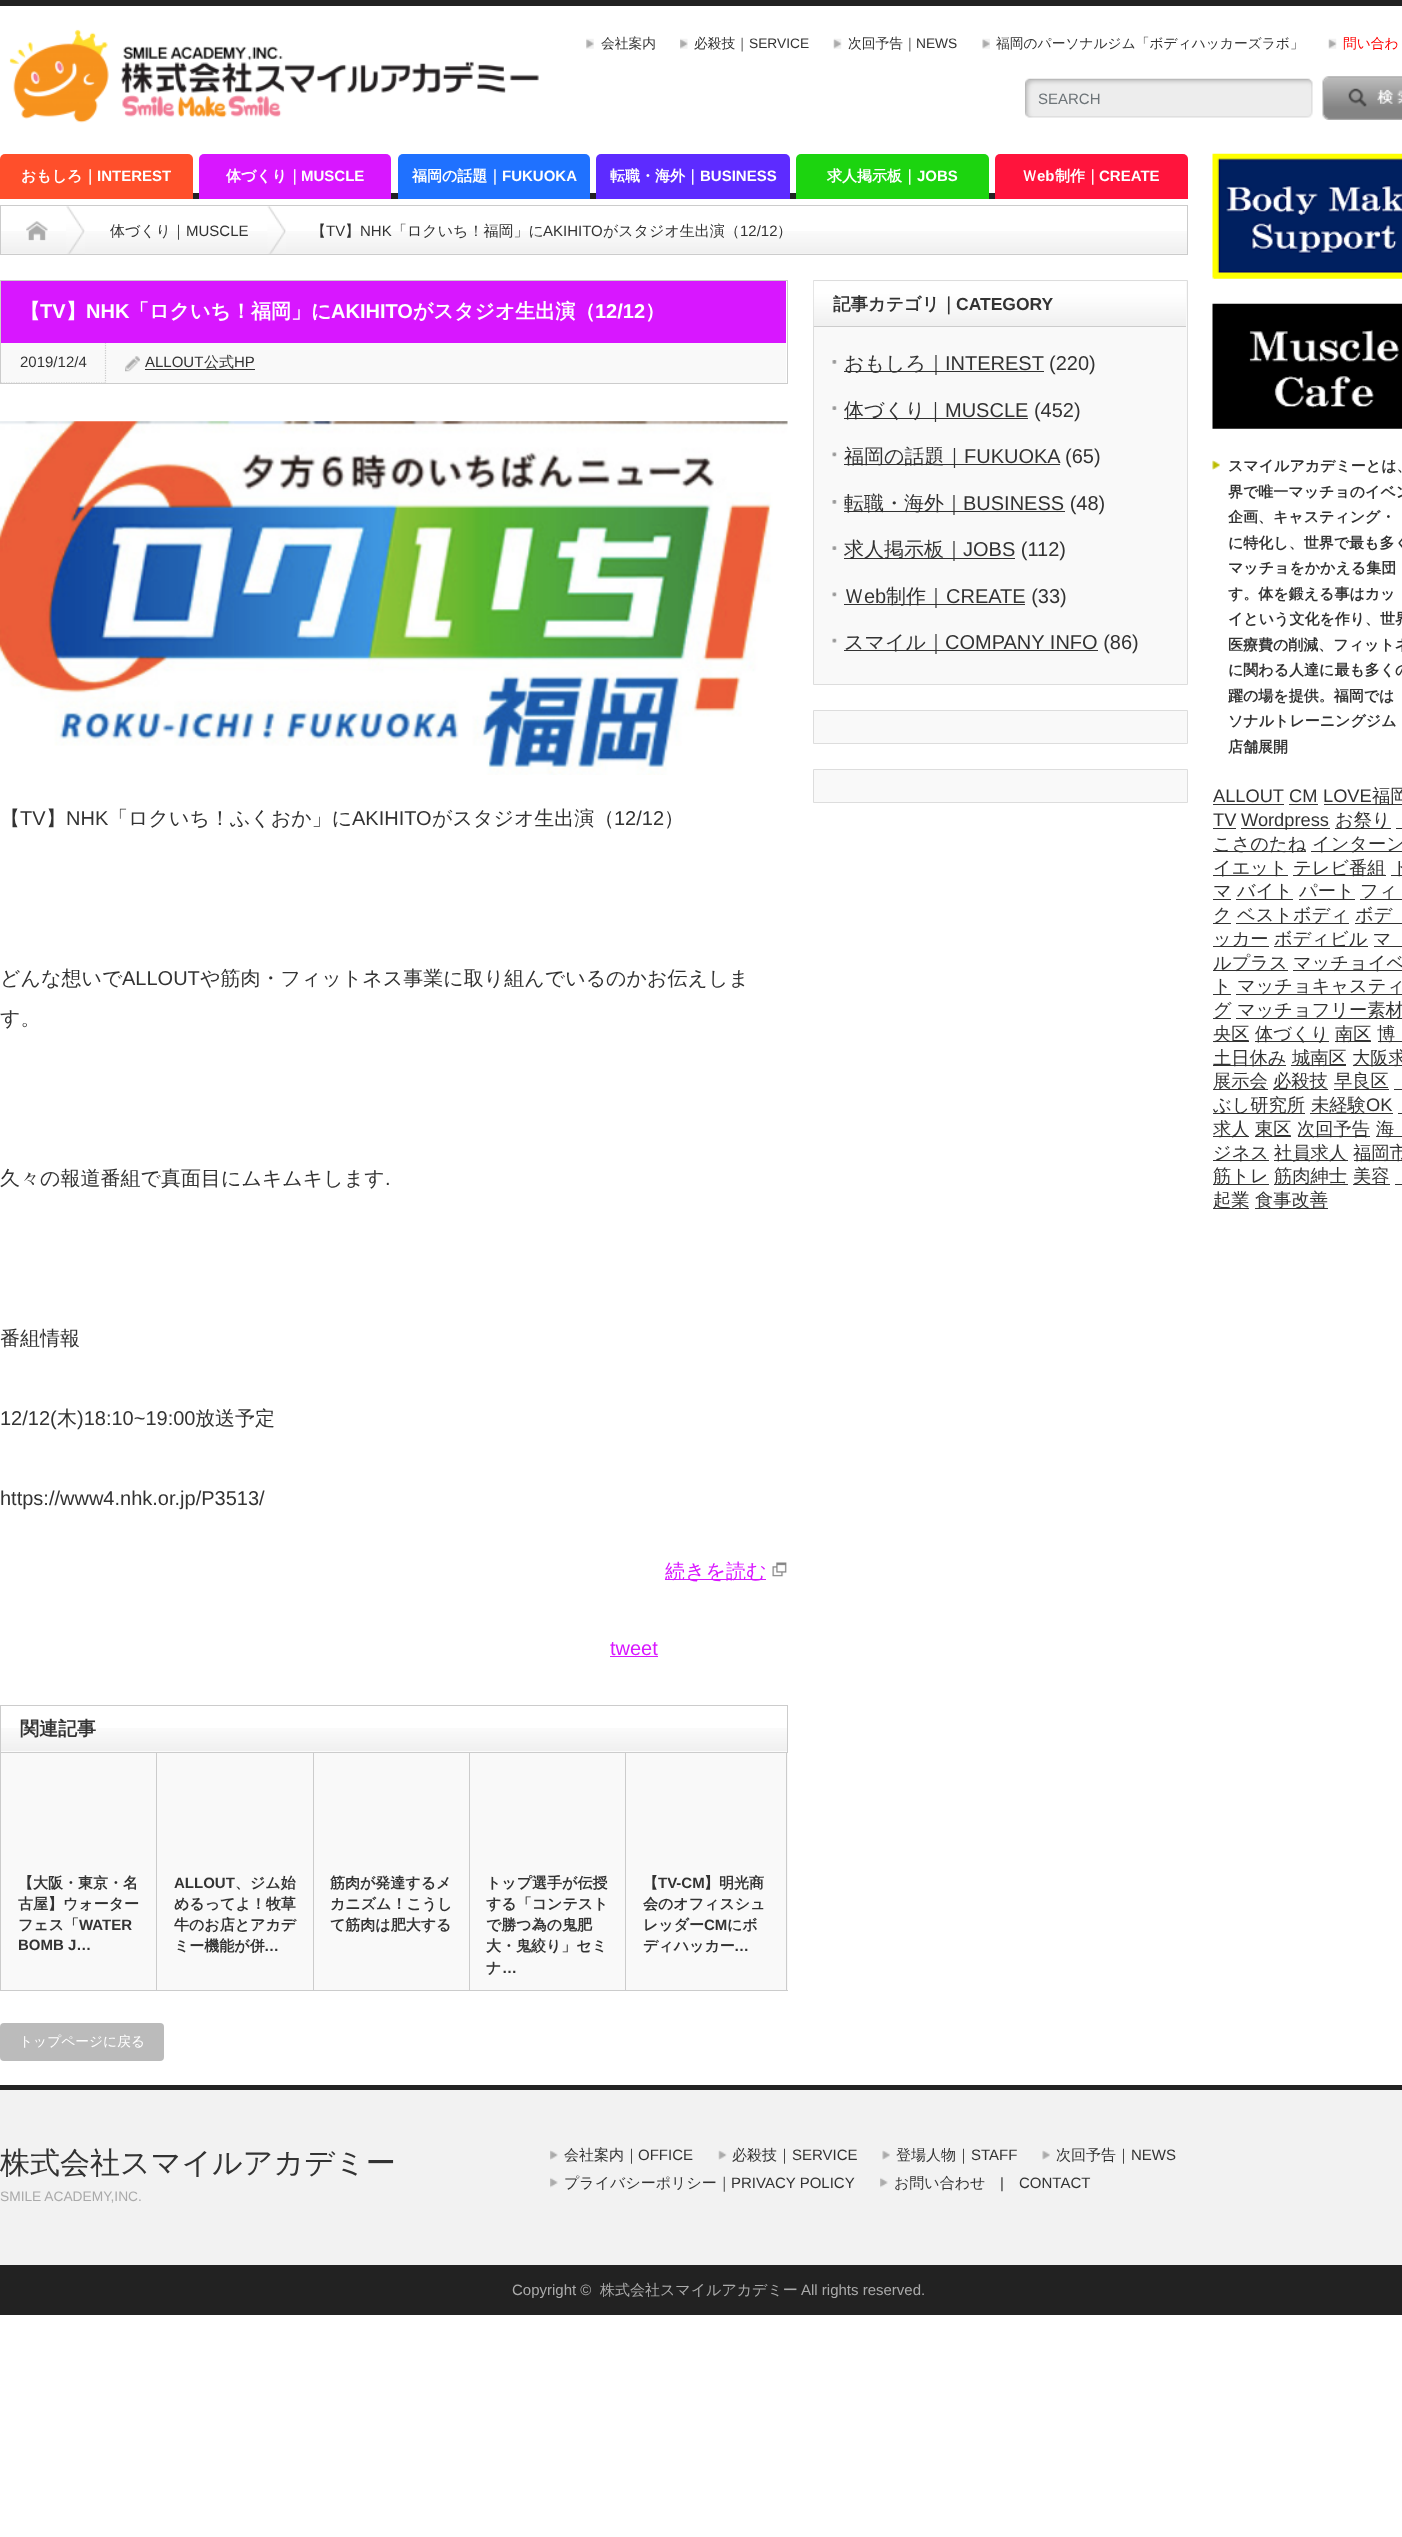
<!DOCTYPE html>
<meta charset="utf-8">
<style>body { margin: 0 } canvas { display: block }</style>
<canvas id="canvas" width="1402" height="2537"></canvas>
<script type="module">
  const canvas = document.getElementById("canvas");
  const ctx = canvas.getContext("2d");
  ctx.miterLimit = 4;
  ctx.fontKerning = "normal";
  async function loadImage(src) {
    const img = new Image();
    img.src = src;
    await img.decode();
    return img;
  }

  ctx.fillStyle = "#ffffff";
  ctx.fillRect(0, 0, 1402, 2537);
  ctx.fillStyle = "#222222";
  ctx.fillRect(0, 0, 1402, 6);
  ctx.drawImage(await loadImage("img1.png"), 9, 29, 530, 94);
  ctx.drawImage(await loadImage("img2.png"), 586, 38, 8, 11);
  ctx.font = "500 13.75px WenQuanYi Zen Hei";
  ctx.fillStyle = "#333333";
  ctx.fillText("会社案内", 601, 48);
  ctx.drawImage(await loadImage("img3.png"), 680, 38, 8, 11);
  ctx.fillText("必殺技｜", 694, 48);
  ctx.font = "13.75px Liberation Sans";
  ctx.fillText("SERVICE", 749, 48);
  ctx.drawImage(await loadImage("img4.png"), 833, 38, 9, 11);
  ctx.font = "500 13.75px WenQuanYi Zen Hei";
  ctx.fillText("次回予告｜", 848, 48);
  ctx.font = "13.75px Liberation Sans";
  ctx.fillText("NEWS", 916, 48);
  ctx.drawImage(await loadImage("img5.png"), 982, 38, 8, 11);
  ctx.font = "500 13.75px WenQuanYi Zen Hei";
  ctx.fillText("福岡のパーソナルジム「ボディハッカーズラボ」", 996, 48);
  ctx.drawImage(await loadImage("img6.png"), 1328, 38, 9, 11);
  ctx.fillStyle = "#ff0000";
  ctx.fillText("問い合わ", 1343, 48);
  ctx.drawImage(await loadImage("img7.png"), 1025, 78, 288, 40);
  ctx.font = "15px Liberation Sans";
  ctx.fillStyle = "#6d7478";
  ctx.fillText("SEARCH", 1038, 104);
  ctx.drawImage(await loadImage("img8.png"), 1322, 76, 80, 44);
  ctx.fillStyle = "#222222";
  ctx.fillRect(193, 193, 802, 6);
  ctx.fillStyle = "#ff4f2b";
  ctx.beginPath();
  ctx.roundRect(0, 154, 193, 45, [5, 5, 0, 0]);
  ctx.fill();
  ctx.font = "bold 15px WenQuanYi Zen Hei";
  ctx.fillStyle = "#ffffff";
  ctx.fillText("おもしろ｜", 21, 181);
  ctx.font = "bold 15px Liberation Sans";
  ctx.fillText("INTEREST", 97, 181);
  ctx.fillStyle = "#d817ff";
  ctx.beginPath();
  ctx.roundRect(199, 154, 192, 45, [5, 5, 0, 0]);
  ctx.fill();
  ctx.font = "bold 15px WenQuanYi Zen Hei";
  ctx.fillStyle = "#ffffff";
  ctx.fillText("体づくり｜", 226, 181);
  ctx.font = "bold 15px Liberation Sans";
  ctx.fillText("MUSCLE", 301, 181);
  ctx.fillStyle = "#1f71ff";
  ctx.beginPath();
  ctx.roundRect(398, 154, 192, 45, [5, 5, 0, 0]);
  ctx.fill();
  ctx.font = "bold 15px WenQuanYi Zen Hei";
  ctx.fillStyle = "#ffffff";
  ctx.fillText("福岡の話題｜", 412, 181);
  ctx.font = "bold 15px Liberation Sans";
  ctx.fillText("FUKUOKA", 502, 181);
  ctx.fillStyle = "#5d2bff";
  ctx.beginPath();
  ctx.roundRect(596, 154, 194, 45, [5, 5, 0, 0]);
  ctx.fill();
  ctx.font = "bold 15px WenQuanYi Zen Hei";
  ctx.fillStyle = "#ffffff";
  ctx.fillText("転職・海外｜", 610, 181);
  ctx.font = "bold 15px Liberation Sans";
  ctx.fillText("BUSINESS", 700, 181);
  ctx.fillStyle = "#1cd40f";
  ctx.beginPath();
  ctx.roundRect(796, 154, 193, 45, [5, 5, 0, 0]);
  ctx.fill();
  ctx.font = "bold 15px WenQuanYi Zen Hei";
  ctx.fillStyle = "#ffffff";
  ctx.fillText("求人掲示板｜", 827, 181);
  ctx.font = "bold 15px Liberation Sans";
  ctx.fillText("JOBS", 917, 181);
  ctx.fillStyle = "#ff143c";
  ctx.beginPath();
  ctx.roundRect(995, 154, 193, 45, [5, 5, 0, 0]);
  ctx.fill();
  ctx.font = "bold 15px WenQuanYi Zen Hei";
  ctx.fillStyle = "#ffffff";
  ctx.fillText("Ｗ", 1022, 181);
  ctx.font = "bold 15px Liberation Sans";
  ctx.fillText("eb", 1037, 181);
  ctx.font = "bold 15px WenQuanYi Zen Hei";
  ctx.fillText("制作｜", 1055, 181);
  ctx.font = "bold 15px Liberation Sans";
  ctx.fillText("CREATE", 1099, 181);
  ctx.drawImage(await loadImage("img9.png"), 1, 231, 1186, 23);
  ctx.strokeStyle = "#cccccc";
  ctx.strokeRect(0.5, 205.5, 1187, 49);
  ctx.drawImage(await loadImage("img10.png"), 66, 206, 19, 48);
  ctx.drawImage(await loadImage("img11.png"), 26, 221, 22, 20);
  ctx.drawImage(await loadImage("img12.png"), 267, 206, 19, 48);
  ctx.font = "500 15px WenQuanYi Zen Hei";
  ctx.fillStyle = "#333333";
  ctx.fillText("体づくり｜", 110, 236);
  ctx.font = "15px Liberation Sans";
  ctx.fillText("MUSCLE", 186, 236);
  ctx.font = "500 15px WenQuanYi Zen Hei";
  ctx.fillText("【", 311, 236);
  ctx.font = "15px Liberation Sans";
  ctx.fillText("TV", 326, 236);
  ctx.font = "500 15px WenQuanYi Zen Hei";
  ctx.fillText("】", 345, 236);
  ctx.font = "15px Liberation Sans";
  ctx.fillText("NHK", 360, 236);
  ctx.font = "500 15px WenQuanYi Zen Hei";
  ctx.fillText("「ロクいち！福岡」に", 392, 236);
  ctx.font = "15px Liberation Sans";
  ctx.fillText("AKIHITO", 543, 236);
  ctx.font = "500 15px WenQuanYi Zen Hei";
  ctx.fillText("がスタジオ生出演（", 603, 236);
  ctx.font = "15px Liberation Sans";
  ctx.fillText("12/12", 740, 236);
  ctx.font = "500 15px WenQuanYi Zen Hei";
  ctx.fillText("）", 777, 236);
  ctx.strokeRect(0.5, 280.5, 787, 103);
  ctx.fillStyle = "#d817ff";
  ctx.fillRect(1, 281, 785, 62);
  ctx.font = "bold 20px WenQuanYi Zen Hei";
  ctx.fillStyle = "#ffffff";
  ctx.fillText("【", 20, 318);
  ctx.font = "bold 20px Liberation Sans";
  ctx.fillText("TV", 40, 318);
  ctx.font = "bold 20px WenQuanYi Zen Hei";
  ctx.fillText("】", 66, 318);
  ctx.font = "bold 20px Liberation Sans";
  ctx.fillText("NHK", 86, 318);
  ctx.font = "bold 20px WenQuanYi Zen Hei";
  ctx.fillText("「ロクいち！福岡」に", 129, 318);
  ctx.font = "bold 20px Liberation Sans";
  ctx.fillText("AKIHITO", 331, 318);
  ctx.font = "bold 20px WenQuanYi Zen Hei";
  ctx.fillText("がスタジオ生出演（", 413, 318);
  ctx.font = "bold 20px Liberation Sans";
  ctx.fillText("12/12", 595, 318);
  ctx.font = "bold 20px WenQuanYi Zen Hei";
  ctx.fillText("）", 645, 318);
  ctx.fillStyle = "#f9f9f9";
  ctx.fillRect(1, 343, 785, 40);
  ctx.save();
  ctx.beginPath();
  ctx.rect(1, 343, 785, 40);
  ctx.clip();
  ctx.beginPath();
  ctx.moveTo(105.5, 342.5);
  ctx.lineTo(105.5, 384);
  ctx.lineWidth = 1.2;
  ctx.setLineDash([1.25, 1.25]);
  ctx.stroke();
  ctx.beginPath();
  ctx.moveTo(1, 383);
  ctx.lineTo(106, 383);
  ctx.stroke();
  ctx.restore();
  ctx.font = "15px Liberation Sans";
  ctx.fillStyle = "#333333";
  ctx.fillText("2019/12/4", 20, 367);
  ctx.drawImage(await loadImage("img13.png"), 125, 356, 15, 16);
  ctx.fillText("ALLOUT", 145, 367);
  ctx.fillRect(145, 369, 110, 1);
  ctx.font = "500 15px WenQuanYi Zen Hei";
  ctx.fillText("公式", 204, 367);
  ctx.font = "15px Liberation Sans";
  ctx.fillText("HP", 234, 367);
  ctx.drawImage(await loadImage("img14.png"), 0, 421, 788, 354);
  ctx.font = "500 20px WenQuanYi Zen Hei";
  ctx.fillText("【", 0, 825);
  ctx.font = "20px Liberation Sans";
  ctx.fillText("TV", 20, 825);
  ctx.font = "500 20px WenQuanYi Zen Hei";
  ctx.fillText("】", 46, 825);
  ctx.font = "20px Liberation Sans";
  ctx.fillText("NHK", 66, 825);
  ctx.font = "500 20px WenQuanYi Zen Hei";
  ctx.fillText("「ロクいち！ふくおか」に", 108, 825);
  ctx.font = "20px Liberation Sans";
  ctx.fillText("AKIHITO", 352, 825);
  ctx.font = "500 20px WenQuanYi Zen Hei";
  ctx.fillText("がスタジオ生出演（", 432, 825);
  ctx.font = "20px Liberation Sans";
  ctx.fillText("12/12", 614, 825);
  ctx.font = "500 20px WenQuanYi Zen Hei";
  ctx.fillText("）", 664, 825);
  ctx.fillText("どんな想いで", 0, 985);
  ctx.font = "20px Liberation Sans";
  ctx.fillText("ALLOUT", 122, 985);
  ctx.font = "500 20px WenQuanYi Zen Hei";
  ctx.fillText("や筋肉・フィットネス事業に取り組んでいるのかお伝えしま", 200, 985);
  ctx.fillText("す。", 0, 1025);
  ctx.fillText("久々の報道番組で真面目にムキムキします", 0, 1185);
  ctx.font = "20px Liberation Sans";
  ctx.fillText(".", 385, 1185);
  ctx.font = "500 20px WenQuanYi Zen Hei";
  ctx.fillText("番組情報", 0, 1345);
  ctx.font = "20px Liberation Sans";
  ctx.fillText("12/12(", 0, 1425);
  ctx.font = "500 20px WenQuanYi Zen Hei";
  ctx.fillText("木", 57, 1425);
  ctx.font = "20px Liberation Sans";
  ctx.fillText(")18:10~19:00", 77, 1425);
  ctx.font = "500 20px WenQuanYi Zen Hei";
  ctx.fillText("放送予定", 195, 1425);
  ctx.font = "20px Liberation Sans";
  ctx.fillText("https://www4.nhk.or.jp/P3513/", 0, 1505);
  ctx.drawImage(await loadImage("img15.png"), 772, 1562, 15, 15);
  ctx.fillStyle = "#d817ff";
  ctx.fillRect(665, 1579, 101, 1);
  ctx.font = "500 20px WenQuanYi Zen Hei";
  ctx.fillText("続きを読む", 665, 1578);
  ctx.font = "20px Liberation Sans";
  ctx.fillText("tweet", 610, 1655);
  ctx.fillRect(610, 1656, 48, 1);
  ctx.drawImage(await loadImage("img16.png"), 1, 1728, 786, 24);
  ctx.strokeRect(0.5, 1705.5, 787, 47);
  ctx.font = "bold 19px WenQuanYi Zen Hei";
  ctx.fillStyle = "#333333";
  ctx.fillText("関連記事", 20, 1735);
  ctx.fillStyle = "#f9f9f9";
  ctx.fillRect(1, 1753, 787, 237);
  ctx.fillStyle = "#cccccc";
  ctx.fillRect(786, 1753, 1, 238);
  ctx.fillRect(0, 1990, 788, 1);
  ctx.fillRect(0, 1753, 1, 238);
  ctx.fillRect(156, 1753, 1, 237);
  ctx.font = "bold 15px WenQuanYi Zen Hei";
  ctx.fillStyle = "#333333";
  ctx.fillText("【大阪・東京・名", 18, 1888);
  ctx.fillText("古屋】ウォーター", 18, 1909);
  ctx.fillText("フェス「", 18, 1930);
  ctx.font = "bold 15px Liberation Sans";
  ctx.fillText("WATER", 79, 1930);
  ctx.fillText("BOMB J…", 18, 1950);
  ctx.fillStyle = "#cccccc";
  ctx.fillRect(313, 1753, 1, 237);
  ctx.fillStyle = "#333333";
  ctx.fillText("ALLOUT", 174, 1888);
  ctx.font = "bold 15px WenQuanYi Zen Hei";
  ctx.fillText("、ジム始", 235, 1888);
  ctx.fillText("めるってよ！牧草", 174, 1909);
  ctx.fillText("牛のお店とアカデ", 174, 1930);
  ctx.fillText("ミー機能が併", 174, 1951);
  ctx.font = "bold 15px Liberation Sans";
  ctx.fillText("…", 264, 1951);
  ctx.fillStyle = "#cccccc";
  ctx.fillRect(469, 1753, 1, 237);
  ctx.font = "bold 15px WenQuanYi Zen Hei";
  ctx.fillStyle = "#333333";
  ctx.fillText("筋肉が発達するメ", 330, 1888);
  ctx.fillText("カニズム！こうし", 330, 1909);
  ctx.fillText("て筋肉は肥大する", 330, 1930);
  ctx.fillStyle = "#cccccc";
  ctx.fillRect(625, 1753, 1, 237);
  ctx.fillStyle = "#333333";
  ctx.fillText("トップ選手が伝授", 486, 1888);
  ctx.fillText("する「コンテスト", 486, 1909);
  ctx.fillText("で勝つ為の鬼肥", 486, 1930);
  ctx.fillText("大・鬼絞り」セミ", 486, 1951);
  ctx.fillText("ナ", 486, 1973);
  ctx.font = "bold 15px Liberation Sans";
  ctx.fillText("…", 502, 1973);
  ctx.font = "bold 15px WenQuanYi Zen Hei";
  ctx.fillText("【", 643, 1888);
  ctx.font = "bold 15px Liberation Sans";
  ctx.fillText("TV-CM", 658, 1888);
  ctx.font = "bold 15px WenQuanYi Zen Hei";
  ctx.fillText("】明光商", 704, 1888);
  ctx.fillText("会のオフィスシュ", 643, 1909);
  ctx.fillText("レッダー", 643, 1930);
  ctx.font = "bold 15px Liberation Sans";
  ctx.fillText("CM", 704, 1930);
  ctx.font = "bold 15px WenQuanYi Zen Hei";
  ctx.fillText("にボ", 727, 1930);
  ctx.fillText("ディハッカー", 643, 1951);
  ctx.font = "bold 15px Liberation Sans";
  ctx.fillText("…", 734, 1951);
  ctx.fillStyle = "#bbbbbb";
  ctx.beginPath();
  ctx.roundRect(0, 2023, 164, 38, 4);
  ctx.fill();
  ctx.font = "500 13.75px WenQuanYi Zen Hei";
  ctx.fillStyle = "#ffffff";
  ctx.fillText("トップページに戻る", 19, 2046);
  ctx.fillStyle = "#f9f9f9";
  ctx.beginPath();
  ctx.rect(813.5, 280.5, 374, 404);
  ctx.fill();
  ctx.strokeStyle = "#dddddd";
  ctx.stroke();
  ctx.drawImage(await loadImage("img17.png"), 813, 281, 373, 45);
  ctx.fillStyle = "#cccccc";
  ctx.fillRect(814, 326, 372, 1);
  ctx.font = "bold 17.5px WenQuanYi Zen Hei";
  ctx.fillStyle = "#333333";
  ctx.fillText("記事カテゴリ｜", 833, 310);
  ctx.font = "bold 17.5px Liberation Sans";
  ctx.fillText("CATEGORY", 956, 310);
  ctx.drawImage(await loadImage("img18.png"), 832, 360, 5, 4);
  ctx.fillRect(844, 371, 200, 1);
  ctx.font = "500 20px WenQuanYi Zen Hei";
  ctx.fillText("おもしろ｜", 844, 370);
  ctx.font = "20px Liberation Sans";
  ctx.fillText("INTEREST", 945, 370);
  ctx.fillText("(220)", 1049, 370);
  ctx.drawImage(await loadImage("img19.png"), 832, 406, 5, 4);
  ctx.fillRect(844, 418, 184, 1);
  ctx.font = "500 20px WenQuanYi Zen Hei";
  ctx.fillText("体づくり｜", 844, 417);
  ctx.font = "20px Liberation Sans";
  ctx.fillText("MUSCLE (452)", 945, 417);
  ctx.drawImage(await loadImage("img20.png"), 832, 452, 5, 5);
  ctx.fillRect(844, 464, 216, 1);
  ctx.font = "500 20px WenQuanYi Zen Hei";
  ctx.fillText("福岡の話題｜", 844, 463);
  ctx.font = "20px Liberation Sans";
  ctx.fillText("FUKUOKA", 964, 463);
  ctx.fillText("(65)", 1065, 463);
  ctx.drawImage(await loadImage("img18.png"), 832, 500, 5, 4);
  ctx.fillRect(844, 511, 221, 1);
  ctx.font = "500 20px WenQuanYi Zen Hei";
  ctx.fillText("転職・海外｜", 844, 510);
  ctx.font = "20px Liberation Sans";
  ctx.fillText("BUSINESS (48)", 963, 510);
  ctx.drawImage(await loadImage("img19.png"), 832, 546, 5, 4);
  ctx.fillRect(844, 558, 171, 1);
  ctx.font = "500 20px WenQuanYi Zen Hei";
  ctx.fillText("求人掲示板｜", 844, 556);
  ctx.font = "20px Liberation Sans";
  ctx.fillText("JOBS (112)", 963, 556);
  ctx.drawImage(await loadImage("img20.png"), 832, 592, 5, 5);
  ctx.font = "500 20px WenQuanYi Zen Hei";
  ctx.fillText("Ｗ", 844, 603);
  ctx.font = "20px Liberation Sans";
  ctx.fillText("eb", 864, 603);
  ctx.fillRect(844, 604, 181, 1);
  ctx.font = "500 20px WenQuanYi Zen Hei";
  ctx.fillText("制作｜", 886, 603);
  ctx.font = "20px Liberation Sans";
  ctx.fillText("CREATE (33)", 946, 603);
  ctx.drawImage(await loadImage("img21.png"), 832, 638, 5, 5);
  ctx.fillRect(844, 650, 254, 1);
  ctx.font = "500 20px WenQuanYi Zen Hei";
  ctx.fillText("スマイル｜", 844, 649);
  ctx.font = "20px Liberation Sans";
  ctx.fillText("COMPANY INFO (86)", 945, 649);
  ctx.fillStyle = "#f9f9f9";
  ctx.beginPath();
  ctx.rect(813.5, 710.5, 374, 33);
  ctx.fill();
  ctx.stroke();
  ctx.beginPath();
  ctx.rect(813.5, 769.5, 374, 33);
  ctx.fill();
  ctx.stroke();
  ctx.drawImage(await loadImage("img22.png"), 1212, 153, 190, 126);
  ctx.drawImage(await loadImage("img23.png"), 1212, 303, 190, 126);
  ctx.drawImage(await loadImage("img24.png"), 1212, 460, 8, 10);
  ctx.font = "bold 15px WenQuanYi Zen Hei";
  ctx.fillStyle = "#333333";
  ctx.fillText("スマイルアカデミーとは、", 1228, 471);
  ctx.fillText("界で唯一マッチョのイベン", 1228, 497);
  ctx.fillText("企画、キャスティング・", 1228, 522);
  ctx.fillText("に特化し、世界で最も多く", 1228, 548);
  ctx.fillText("マッチョをかかえる集団", 1228, 573);
  ctx.fillText("す。体を鍛える事はカッ", 1228, 599);
  ctx.fillText("イという文化を作り、世界", 1228, 624);
  ctx.fillText("医療費の削減、フィットネ", 1228, 650);
  ctx.fillText("に関わる人達に最も多くの", 1228, 675);
  ctx.fillText("躍の場を提供。福岡では", 1228, 701);
  ctx.fillText("ソナルトレーニングジム", 1228, 726);
  ctx.fillText("店舗展開", 1228, 752);
  ctx.font = "18.25px Liberation Sans";
  ctx.fillText("ALLOUT", 1213, 802);
  ctx.fillRect(1213, 804, 71, 1);
  ctx.fillText("CM", 1289, 802);
  ctx.fillRect(1289, 804, 29, 1);
  ctx.fillText("LOVE", 1323, 802);
  ctx.fillRect(1324, 804, 78, 1);
  ctx.font = "500 18.25px WenQuanYi Zen Hei";
  ctx.fillText("福岡", 1372, 802);
  ctx.font = "18.25px Liberation Sans";
  ctx.fillText("TV", 1213, 826);
  ctx.fillRect(1213, 828, 23, 1);
  ctx.fillRect(1241, 828, 89, 1);
  ctx.fillText("Wordpress", 1241, 826);
  ctx.fillRect(1335, 828, 56, 1);
  ctx.font = "500 18.25px WenQuanYi Zen Hei";
  ctx.fillText("お祭り", 1335, 826);
  ctx.fillRect(1213, 851, 93, 1);
  ctx.fillText("こさのたね", 1213, 850);
  ctx.fillRect(1396, 828, 6, 1);
  ctx.fillRect(1311, 851, 91, 1);
  ctx.fillText("インターン", 1312, 850);
  ctx.fillRect(1213, 875, 75, 1);
  ctx.fillText("イエット", 1213, 874);
  ctx.fillRect(1293, 875, 93, 1);
  ctx.fillText("テレビ番組", 1293, 874);
  ctx.fillRect(1391, 875, 11, 1);
  ctx.fillText("ド", 1392, 874);
  ctx.fillText("マ", 1213, 897);
  ctx.fillRect(1213, 899, 18, 1);
  ctx.fillRect(1236, 899, 57, 1);
  ctx.fillText("バイト", 1237, 897);
  ctx.fillRect(1299, 899, 56, 1);
  ctx.fillText("パート フィ", 1299, 897);
  ctx.fillRect(1213, 923, 18, 1);
  ctx.fillText("ク", 1213, 921);
  ctx.fillRect(1360, 899, 42, 1);
  ctx.fillRect(1236, 923, 113, 1);
  ctx.fillText("ベストボディ", 1237, 921);
  ctx.fillRect(1355, 923, 47, 1);
  ctx.fillText("ボデ", 1355, 921);
  ctx.fillRect(1213, 946, 56, 1);
  ctx.fillText("ッカー", 1213, 945);
  ctx.fillRect(1274, 946, 94, 1);
  ctx.fillText("ボディビル マ", 1274, 945);
  ctx.fillRect(1213, 970, 75, 1);
  ctx.fillText("ルプラス", 1213, 969);
  ctx.fillRect(1374, 946, 28, 1);
  ctx.fillRect(1293, 970, 109, 1);
  ctx.fillText("マッチョイベ", 1293, 969);
  ctx.fillRect(1213, 994, 18, 1);
  ctx.fillText("ト", 1213, 992);
  ctx.fillRect(1236, 994, 166, 1);
  ctx.fillText("マッチョキャスティ", 1237, 992);
  ctx.fillRect(1213, 1018, 18, 1);
  ctx.fillText("グ", 1213, 1016);
  ctx.fillRect(1236, 1018, 166, 1);
  ctx.fillText("マッチョフリー素材", 1237, 1016);
  ctx.fillRect(1213, 1041, 36, 1);
  ctx.fillText("央区", 1213, 1040);
  ctx.fillRect(1255, 1041, 74, 1);
  ctx.fillText("体づくり", 1255, 1040);
  ctx.fillRect(1335, 1041, 36, 1);
  ctx.fillText("南区", 1335, 1040);
  ctx.fillRect(1378, 1041, 24, 1);
  ctx.fillText("博", 1377, 1040);
  ctx.fillRect(1213, 1065, 73, 1);
  ctx.fillText("土日休み", 1213, 1064);
  ctx.fillRect(1291, 1065, 55, 1);
  ctx.fillText("城南区", 1292, 1064);
  ctx.fillRect(1353, 1065, 49, 1);
  ctx.fillText("大阪求", 1352, 1064);
  ctx.fillRect(1213, 1089, 55, 1);
  ctx.fillText("展示会", 1213, 1087);
  ctx.fillRect(1273, 1089, 55, 1);
  ctx.fillText("必殺技", 1273, 1087);
  ctx.fillRect(1334, 1089, 55, 1);
  ctx.fillText("早良区", 1334, 1087);
  ctx.fillRect(1213, 1113, 92, 1);
  ctx.fillText("ぶし研究所", 1213, 1111);
  ctx.fillRect(1394, 1089, 8, 1);
  ctx.fillRect(1310, 1113, 83, 1);
  ctx.fillText("未経験", 1311, 1111);
  ctx.font = "18.25px Liberation Sans";
  ctx.fillText("OK", 1366, 1111);
  ctx.fillRect(1213, 1136, 36, 1);
  ctx.font = "500 18.25px WenQuanYi Zen Hei";
  ctx.fillText("求人", 1213, 1135);
  ctx.fillRect(1398, 1113, 4, 1);
  ctx.fillRect(1255, 1136, 36, 1);
  ctx.fillText("東区", 1255, 1135);
  ctx.fillRect(1298, 1136, 72, 1);
  ctx.fillText("次回予告", 1297, 1135);
  ctx.fillRect(1376, 1136, 26, 1);
  ctx.fillText("海", 1376, 1135);
  ctx.fillRect(1213, 1160, 56, 1);
  ctx.fillText("ジネス", 1213, 1159);
  ctx.fillRect(1274, 1160, 74, 1);
  ctx.fillText("社員求人", 1274, 1159);
  ctx.fillRect(1354, 1160, 48, 1);
  ctx.fillText("福岡市", 1353, 1159);
  ctx.fillRect(1213, 1184, 56, 1);
  ctx.fillText("筋トレ", 1213, 1182);
  ctx.fillRect(1274, 1184, 74, 1);
  ctx.fillText("筋肉紳士", 1274, 1182);
  ctx.fillRect(1353, 1184, 37, 1);
  ctx.fillText("美容", 1353, 1182);
  ctx.fillRect(1395, 1184, 7, 1);
  ctx.fillRect(1213, 1208, 36, 1);
  ctx.fillText("起業", 1213, 1206);
  ctx.fillRect(1255, 1208, 73, 1);
  ctx.fillText("食事改善", 1255, 1206);
  ctx.fillStyle = "#f2f2f2";
  ctx.fillRect(0, 2090, 1402, 175);
  ctx.fillStyle = "#222222";
  ctx.fillRect(0, 2085, 1402, 5);
  ctx.font = "500 30px WenQuanYi Zen Hei";
  ctx.fillStyle = "#333333";
  ctx.fillText("株式会社スマイルアカデミー", 0, 2173);
  ctx.font = "13.75px Liberation Sans";
  ctx.fillStyle = "#aaaaaa";
  ctx.fillText("SMILE ACADEMY,INC.", 0, 2201);
  ctx.drawImage(await loadImage("img25.png"), 550, 2150, 8, 10);
  ctx.font = "500 15px WenQuanYi Zen Hei";
  ctx.fillStyle = "#333333";
  ctx.fillText("会社案内｜", 564, 2160);
  ctx.font = "15px Liberation Sans";
  ctx.fillText("OFFICE", 638, 2160);
  ctx.drawImage(await loadImage("img26.png"), 718, 2150, 9, 10);
  ctx.font = "500 15px WenQuanYi Zen Hei";
  ctx.fillText("必殺技｜", 732, 2160);
  ctx.font = "15px Liberation Sans";
  ctx.fillText("SERVICE", 792, 2160);
  ctx.drawImage(await loadImage("img27.png"), 882, 2150, 8, 10);
  ctx.font = "500 15px WenQuanYi Zen Hei";
  ctx.fillText("登場人物｜", 896, 2160);
  ctx.font = "15px Liberation Sans";
  ctx.fillText("STAFF", 971, 2160);
  ctx.drawImage(await loadImage("img28.png"), 1042, 2150, 8, 10);
  ctx.font = "500 15px WenQuanYi Zen Hei";
  ctx.fillText("次回予告｜", 1056, 2160);
  ctx.font = "15px Liberation Sans";
  ctx.fillText("NEWS", 1131, 2160);
  ctx.drawImage(await loadImage("img29.png"), 550, 2177, 8, 11);
  ctx.font = "500 15px WenQuanYi Zen Hei";
  ctx.fillText("プライバシーポリシー｜", 564, 2188);
  ctx.font = "15px Liberation Sans";
  ctx.fillText("PRIVACY POLICY", 731, 2188);
  ctx.drawImage(await loadImage("img30.png"), 880, 2177, 8, 11);
  ctx.font = "500 15px WenQuanYi Zen Hei";
  ctx.fillText("お問い合わせ", 894, 2188);
  ctx.font = "15px Liberation Sans";
  ctx.fillText("|", 1000, 2188);
  ctx.fillText("CONTACT", 1019, 2188);
  ctx.fillStyle = "#222222";
  ctx.fillRect(0, 2265, 1402, 50);
  ctx.fillStyle = "#aaaaaa";
  ctx.fillText("Copyright ©", 512, 2295);
  ctx.font = "500 15px WenQuanYi Zen Hei";
  ctx.fillText("株式会社スマイルアカデミー", 600, 2295);
  ctx.font = "15px Liberation Sans";
  ctx.fillText("All rights reserved.", 801, 2295);
</script>
